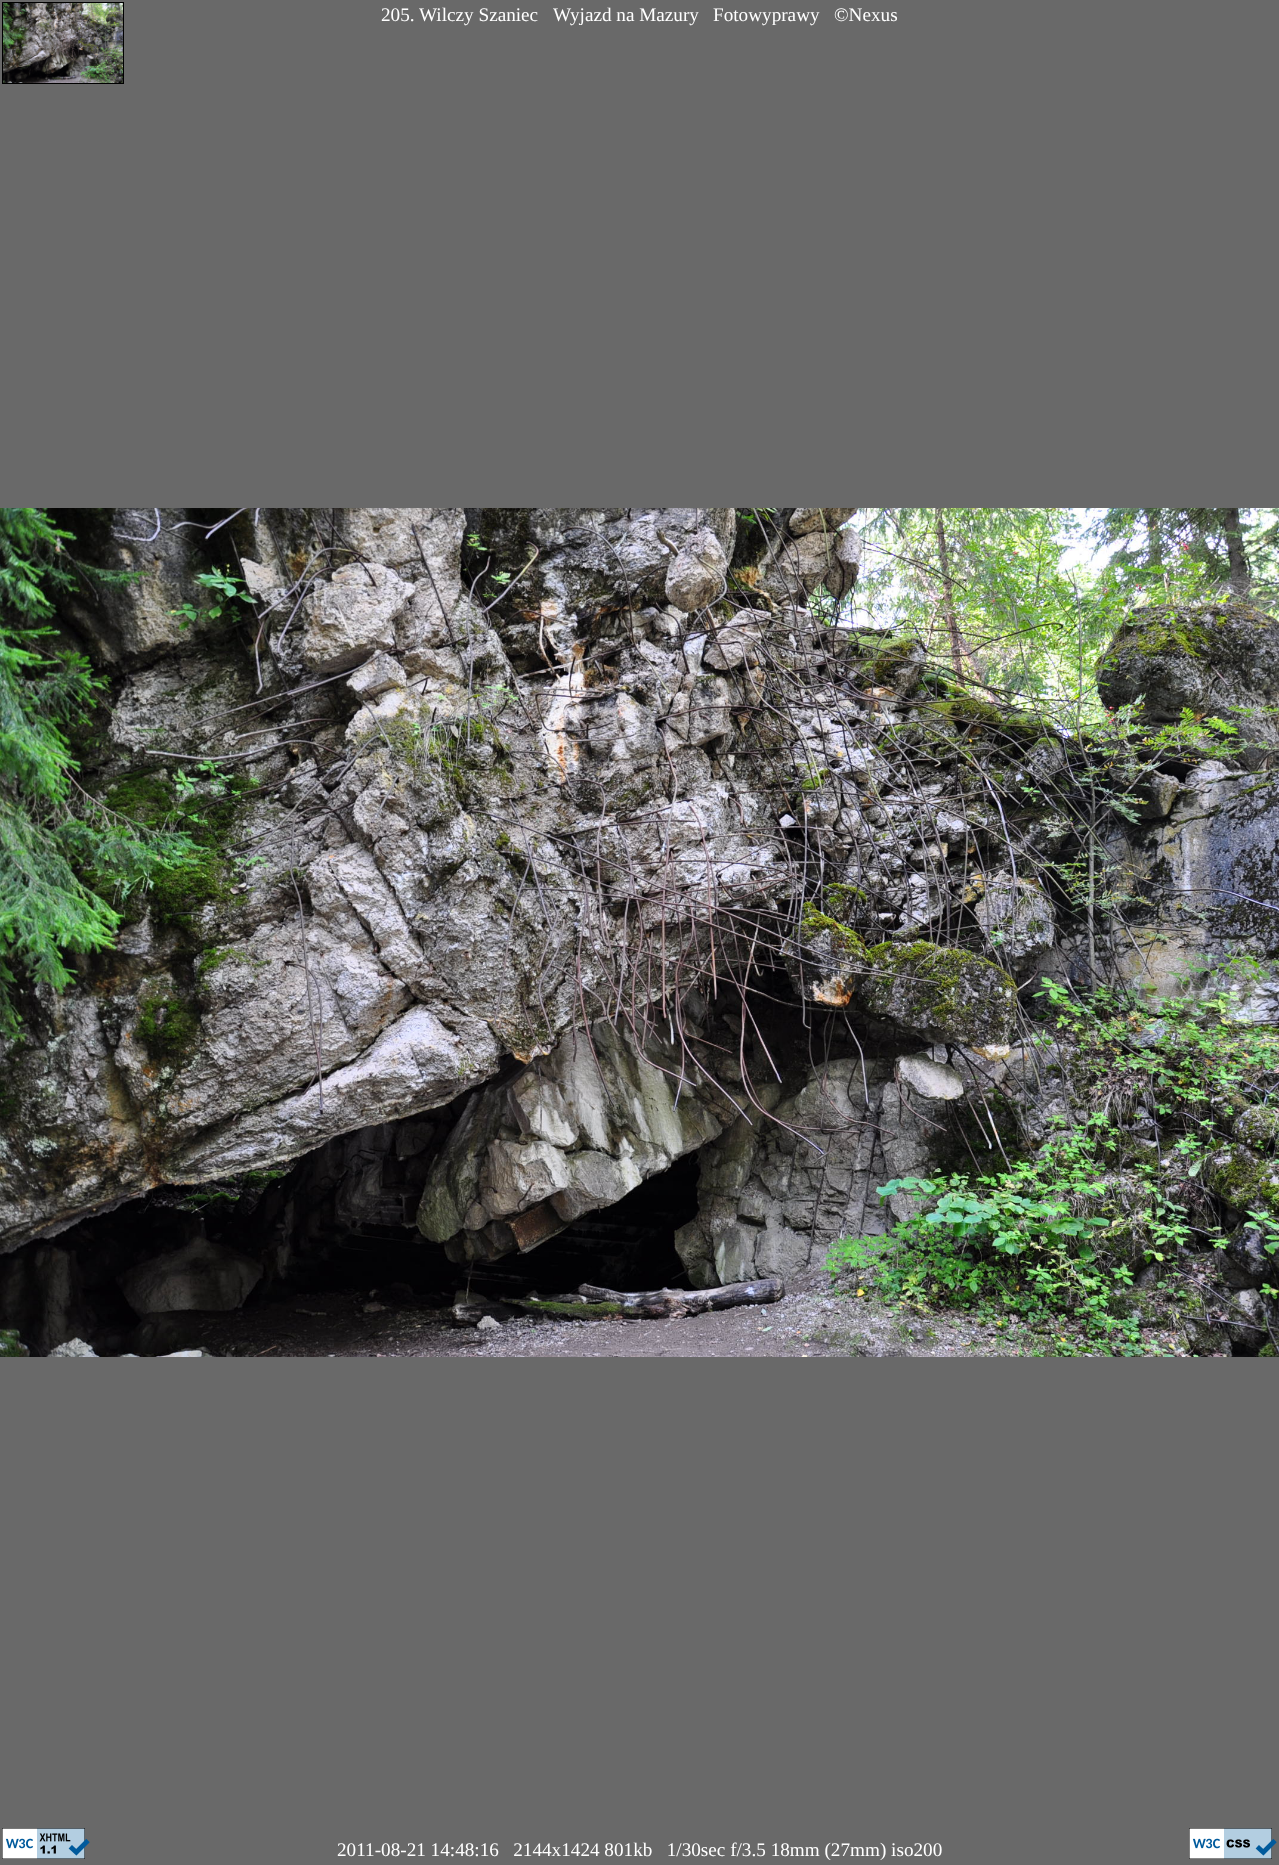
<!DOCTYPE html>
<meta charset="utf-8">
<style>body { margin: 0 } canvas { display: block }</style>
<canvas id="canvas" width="1279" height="1865"></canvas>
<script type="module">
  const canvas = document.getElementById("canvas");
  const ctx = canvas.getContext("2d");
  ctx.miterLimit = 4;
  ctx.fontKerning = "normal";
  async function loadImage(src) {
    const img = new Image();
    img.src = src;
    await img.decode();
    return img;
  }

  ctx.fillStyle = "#696969";
  ctx.fillRect(0, 0, 1279, 1865);
  ctx.drawImage(await loadImage("img1.png"), 0, 508, 1279, 849);
  ctx.strokeStyle = "#000000";
  ctx.strokeRect(2.5, 2.5, 121, 81);
  ctx.drawImage(await loadImage("img2.png"), 3, 3, 120, 80);
  ctx.font = "19.2px Liberation Serif";
  ctx.fillStyle = "#ffffff";
  ctx.fillText("205. Wilczy Szaniec", 381, 21);
  ctx.fillText("Wyjazd na Mazury", 553, 21);
  ctx.fillText("Fotowyprawy", 713, 21);
  ctx.fillText("©Nexus", 834, 21);
  ctx.drawImage(await loadImage("img3.png"), 2, 1828, 88, 31);
  ctx.fillText("2011-08-21 14:48:16   2144x1424 801kb   1/30sec f/3.5 18mm (27mm) iso200", 337, 1856);
  ctx.drawImage(await loadImage("img4.png"), 1189, 1828, 88, 31);
</script>
